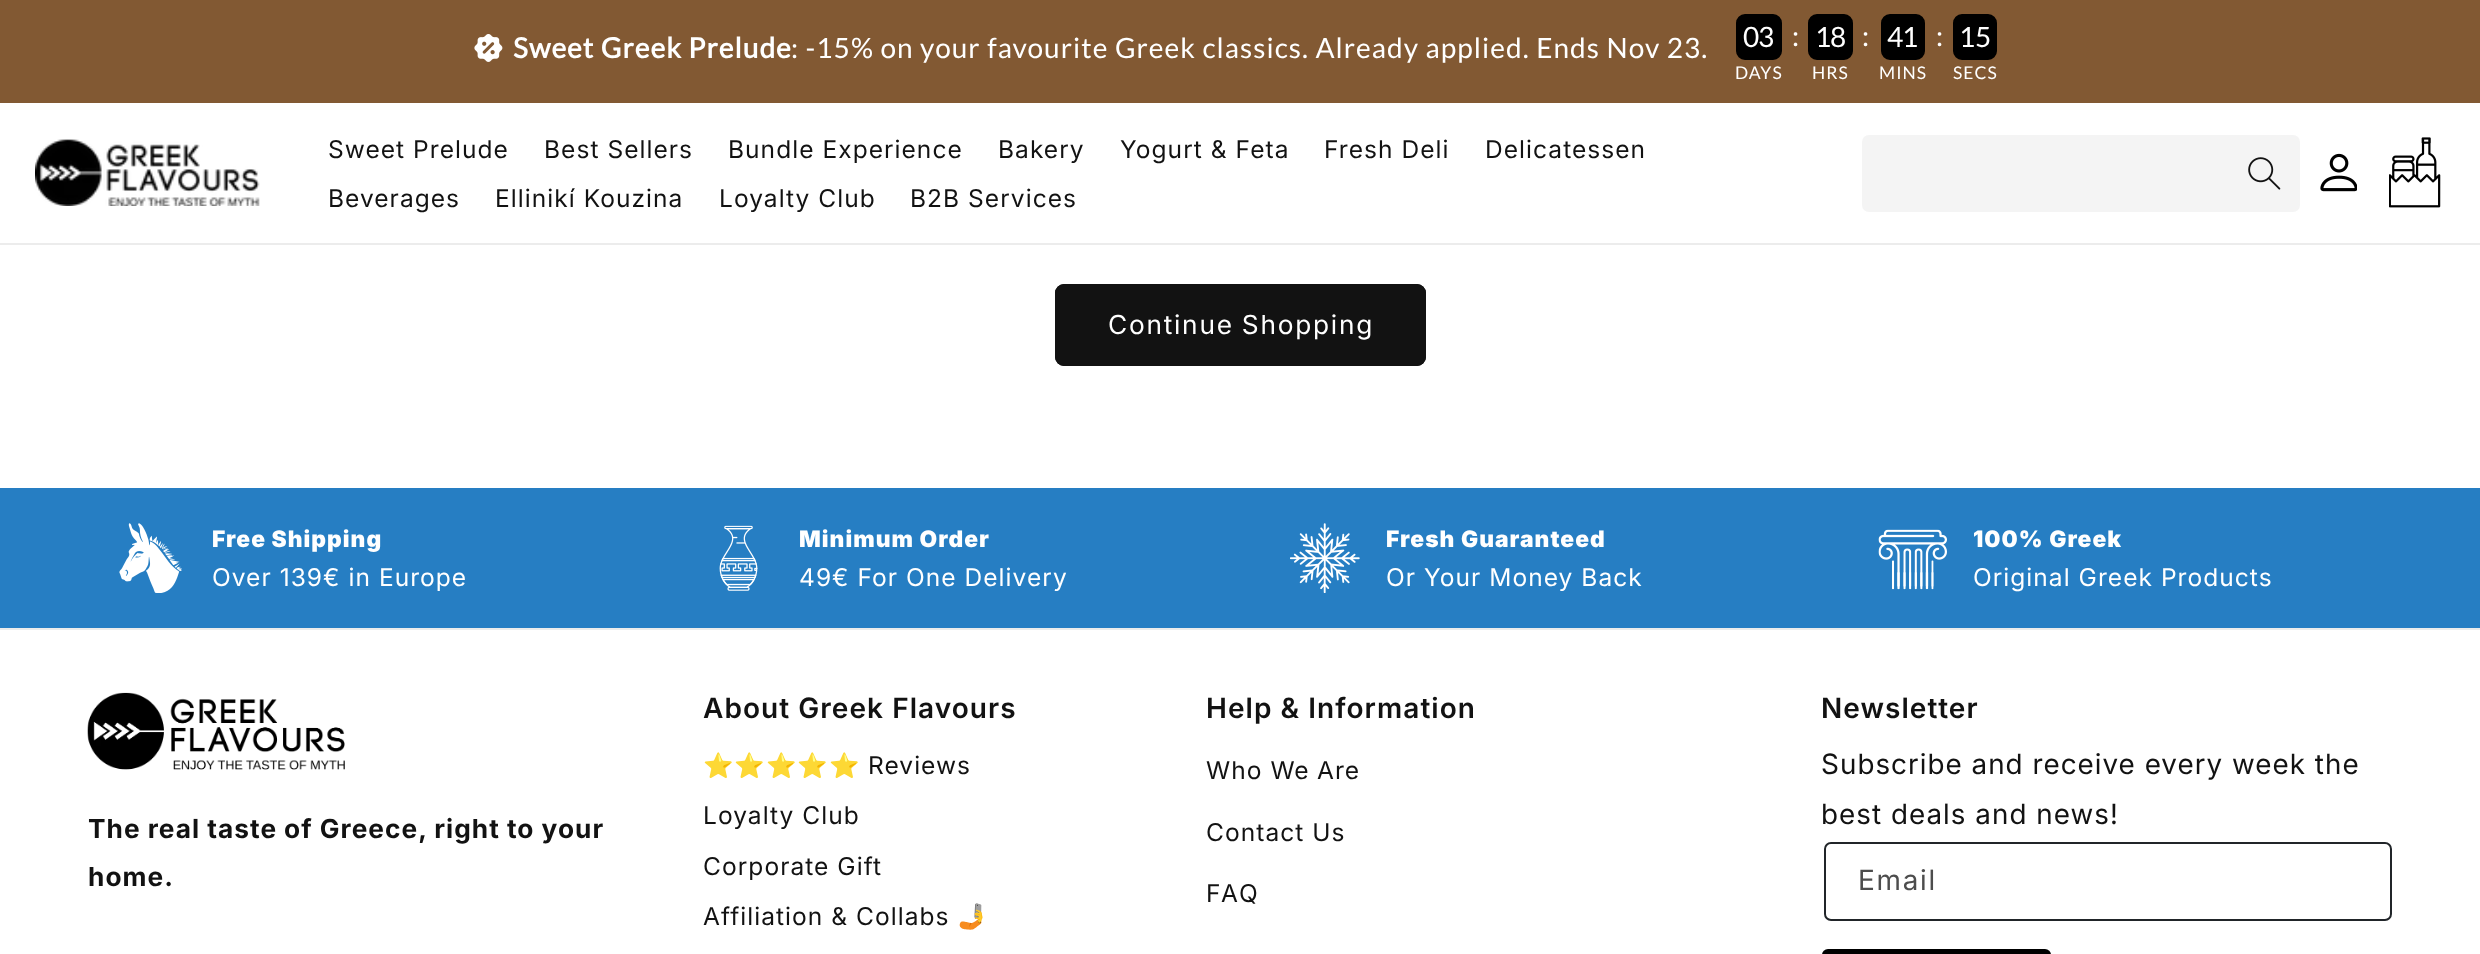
<!DOCTYPE html>
<meta charset="utf-8">
<style>body { margin: 0 } canvas { display: block }</style>
<canvas id="canvas" width="2480" height="954"></canvas>
<script type="module">
  const canvas = document.getElementById("canvas");
  const ctx = canvas.getContext("2d");
  ctx.miterLimit = 4;
  ctx.fontKerning = "normal";
  async function loadImage(src) {
    const img = new Image();
    img.src = src;
    await img.decode();
    return img;
  }

  ctx.fillStyle = "#ffffff";
  ctx.fillRect(0, 0, 2480, 954);
  ctx.fillStyle = "#825933";
  ctx.fillRect(0, 0, 2480, 103);
  ctx.drawImage(await loadImage("img1.png"), 474, 34, 29, 28);
  ctx.letterSpacing = "1.05px";
  ctx.font = "bold 28px Lato";
  ctx.fillStyle = "#ffffff";
  ctx.fillText("Sweet Greek Prelude", 513, 58);
  ctx.font = "28px Lato";
  ctx.fillText(": -15% on your favourite Greek classics. Already applied. Ends Nov 23.", 791, 58);
  ctx.fillStyle = "#000000";
  ctx.beginPath();
  ctx.roundRect(1737, 15, 44, 44, 8);
  ctx.fill();
  ctx.strokeStyle = "#000000";
  ctx.lineWidth = 2;
  ctx.stroke();
  ctx.letterSpacing = "0px";
  ctx.fillStyle = "#ffffff";
  ctx.fillText("0", 1743, 47);
  ctx.fillText("3", 1758, 47);
  ctx.letterSpacing = "1.05px";
  ctx.font = "17.5px Lato";
  ctx.fillText("DAYS", 1735, 79);
  ctx.font = "28px Lato";
  ctx.fillText(":", 1792, 46);
  ctx.fillStyle = "#000000";
  ctx.beginPath();
  ctx.roundRect(1809, 15, 43, 44, 8);
  ctx.fill();
  ctx.stroke();
  ctx.letterSpacing = "0px";
  ctx.fillStyle = "#ffffff";
  ctx.fillText("1", 1815, 47);
  ctx.fillText("8", 1830, 47);
  ctx.letterSpacing = "1.05px";
  ctx.font = "17.5px Lato";
  ctx.fillText("HRS", 1812, 79);
  ctx.font = "28px Lato";
  ctx.fillText(":", 1862, 46);
  ctx.fillStyle = "#000000";
  ctx.beginPath();
  ctx.roundRect(1882, 15, 42, 44, 8);
  ctx.fill();
  ctx.stroke();
  ctx.letterSpacing = "0px";
  ctx.fillStyle = "#ffffff";
  ctx.fillText("4", 1887, 47);
  ctx.fillText("1", 1902, 47);
  ctx.letterSpacing = "1.05px";
  ctx.font = "17.5px Lato";
  ctx.fillText("MINS", 1879, 79);
  ctx.font = "28px Lato";
  ctx.fillText(":", 1936, 46);
  ctx.fillStyle = "#000000";
  ctx.beginPath();
  ctx.roundRect(1954, 15, 42, 44, 8);
  ctx.fill();
  ctx.stroke();
  ctx.letterSpacing = "0px";
  ctx.fillStyle = "#ffffff";
  ctx.fillText("1", 1959, 47);
  ctx.fillText("5", 1975, 47);
  ctx.letterSpacing = "1.05px";
  ctx.font = "17.5px Lato";
  ctx.fillText("SECS", 1953, 79);
  ctx.fillStyle = "#ececec";
  ctx.fillRect(0, 243, 2480, 2);
  ctx.drawImage(await loadImage("img2.png"), 35, 139, 225, 67);
  ctx.font = "24.5px Inter";
  ctx.fillStyle = "#121212";
  ctx.fillText("Sweet Prelude", 328, 158);
  ctx.fillText("Best Sellers", 544, 158);
  ctx.fillText("Bundle Experience", 728, 158);
  ctx.fillText("Bakery", 998, 158);
  ctx.fillText("Yogurt & Feta", 1120, 158);
  ctx.fillText("Fresh Deli", 1324, 158);
  ctx.fillText("Delicatessen", 1485, 158);
  ctx.fillText("Beverages", 328, 207);
  ctx.fillText("Ellinikí Kouzina", 495, 207);
  ctx.fillText("Loyalty Club", 719, 207);
  ctx.fillText("B2B Services", 910, 207);
  ctx.fillStyle = "#f4f4f4";
  ctx.beginPath();
  ctx.roundRect(1862, 135, 438, 77, 7);
  ctx.fill();
  ctx.drawImage(await loadImage("img3.png"), 2248, 157, 33, 33);
  ctx.drawImage(await loadImage("img4.png"), 2320, 153, 37, 39);
  ctx.drawImage(await loadImage("img5.png"), 2389, 137, 52, 71);
  ctx.fillStyle = "#121212";
  ctx.beginPath();
  ctx.roundRect(1055, 284, 371, 82, 9);
  ctx.fill();
  ctx.beginPath();
  ctx.roundRect(1056, 285, 369, 80, 8);
  ctx.strokeStyle = "#121212";
  ctx.stroke();
  ctx.letterSpacing = "1.75px";
  ctx.wordSpacing = "-1px";
  ctx.font = "26.25px Inter";
  ctx.fillStyle = "#ffffff";
  ctx.fillText("Continue Shopping", 1108, 334);
  ctx.fillStyle = "#267ec3";
  ctx.fillRect(0, 488, 2480, 140);
  ctx.drawImage(await loadImage("img6.png"), 119, 523, 63, 70);
  ctx.letterSpacing = "1.05px";
  ctx.wordSpacing = "0px";
  ctx.font = "900 22.75px Inter";
  ctx.fillStyle = "#ffffff";
  ctx.fillText("Free Shipping", 212, 547);
  ctx.font = "24.5px Inter";
  ctx.fillText("Over 139€ in Europe", 212, 586);
  ctx.drawImage(await loadImage("img7.png"), 719, 525, 39, 66);
  ctx.font = "900 22.75px Inter";
  ctx.fillText("Minimum Order", 799, 547);
  ctx.font = "24.5px Inter";
  ctx.fillText("49€ For One Delivery", 799, 586);
  ctx.drawImage(await loadImage("img8.png"), 1290, 523, 70, 70);
  ctx.font = "900 22.75px Inter";
  ctx.fillText("Fresh Guaranteed", 1386, 547);
  ctx.font = "24.5px Inter";
  ctx.fillText("Or Your Money Back", 1386, 586);
  ctx.drawImage(await loadImage("img9.png"), 1878, 529, 69, 61);
  ctx.font = "900 22.75px Inter";
  ctx.fillText("100% Greek", 1973, 547);
  ctx.font = "24.5px Inter";
  ctx.fillText("Original Greek Products", 1973, 586);
  ctx.fillStyle = "#ececec";
  ctx.fillRect(0, 628, 2480, 2);
  ctx.drawImage(await loadImage("img10.png"), 87, 692, 258, 78);
  ctx.wordSpacing = "-0.25px";
  ctx.font = "bold 26.25px Inter";
  ctx.fillStyle = "#121212";
  ctx.fillText("The real taste of Greece, right to your", 88, 838);
  ctx.wordSpacing = "0px";
  ctx.fillText("home.", 88, 886);
  ctx.font = "600 28px Inter";
  ctx.fillText("About Greek Flavours", 703, 718);
  ctx.font = "24.5px Noto Color Emoji";
  ctx.fillText("⭐⭐⭐⭐⭐", 703, 774);
  ctx.font = "24.5px Inter";
  ctx.fillText("Reviews", 868, 774);
  ctx.fillText("Loyalty Club", 703, 824);
  ctx.fillText("Corporate Gift", 703, 875);
  ctx.font = "24.5px 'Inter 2'";
  ctx.fillText("A", 703, 925);
  ctx.font = "24.5px Inter";
  ctx.fillText("ffiliation & Collabs", 721, 925);
  ctx.font = "24.5px Noto Color Emoji";
  ctx.fillText("🤳", 957, 925);
  ctx.font = "600 28px Inter";
  ctx.fillText("Help & Information", 1206, 718);
  ctx.font = "24.5px Inter";
  ctx.fillText("Who We", 1206, 779);
  ctx.font = "24.5px 'Inter 2'";
  ctx.fillText("A", 1317, 779);
  ctx.font = "24.5px Inter";
  ctx.fillText("re", 1335, 779);
  ctx.fillText("Contact Us", 1206, 841);
  ctx.fillText("F", 1206, 902);
  ctx.font = "24.5px 'Inter 2'";
  ctx.fillText("A", 1221, 902);
  ctx.font = "24.5px Inter";
  ctx.fillText("Q", 1239, 902);
  ctx.font = "600 28px Inter";
  ctx.fillText("Newsletter", 1821, 718);
  ctx.font = "28px 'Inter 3'";
  ctx.fillText("Subscribe and receive every week the", 1821, 774);
  ctx.fillText("best deals and news!", 1821, 824);
  ctx.beginPath();
  ctx.roundRect(1825, 843, 566, 77, 6);
  ctx.strokeStyle = "#212529";
  ctx.stroke();
  ctx.letterSpacing = "1.75px";
  ctx.fillStyle = "#4d4d4d";
  ctx.fillText("Email", 1858, 890);
  ctx.fillStyle = "#000000";
  ctx.beginPath();
  ctx.roundRect(1822, 949, 229, 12, 7);
  ctx.fill();
</script>
